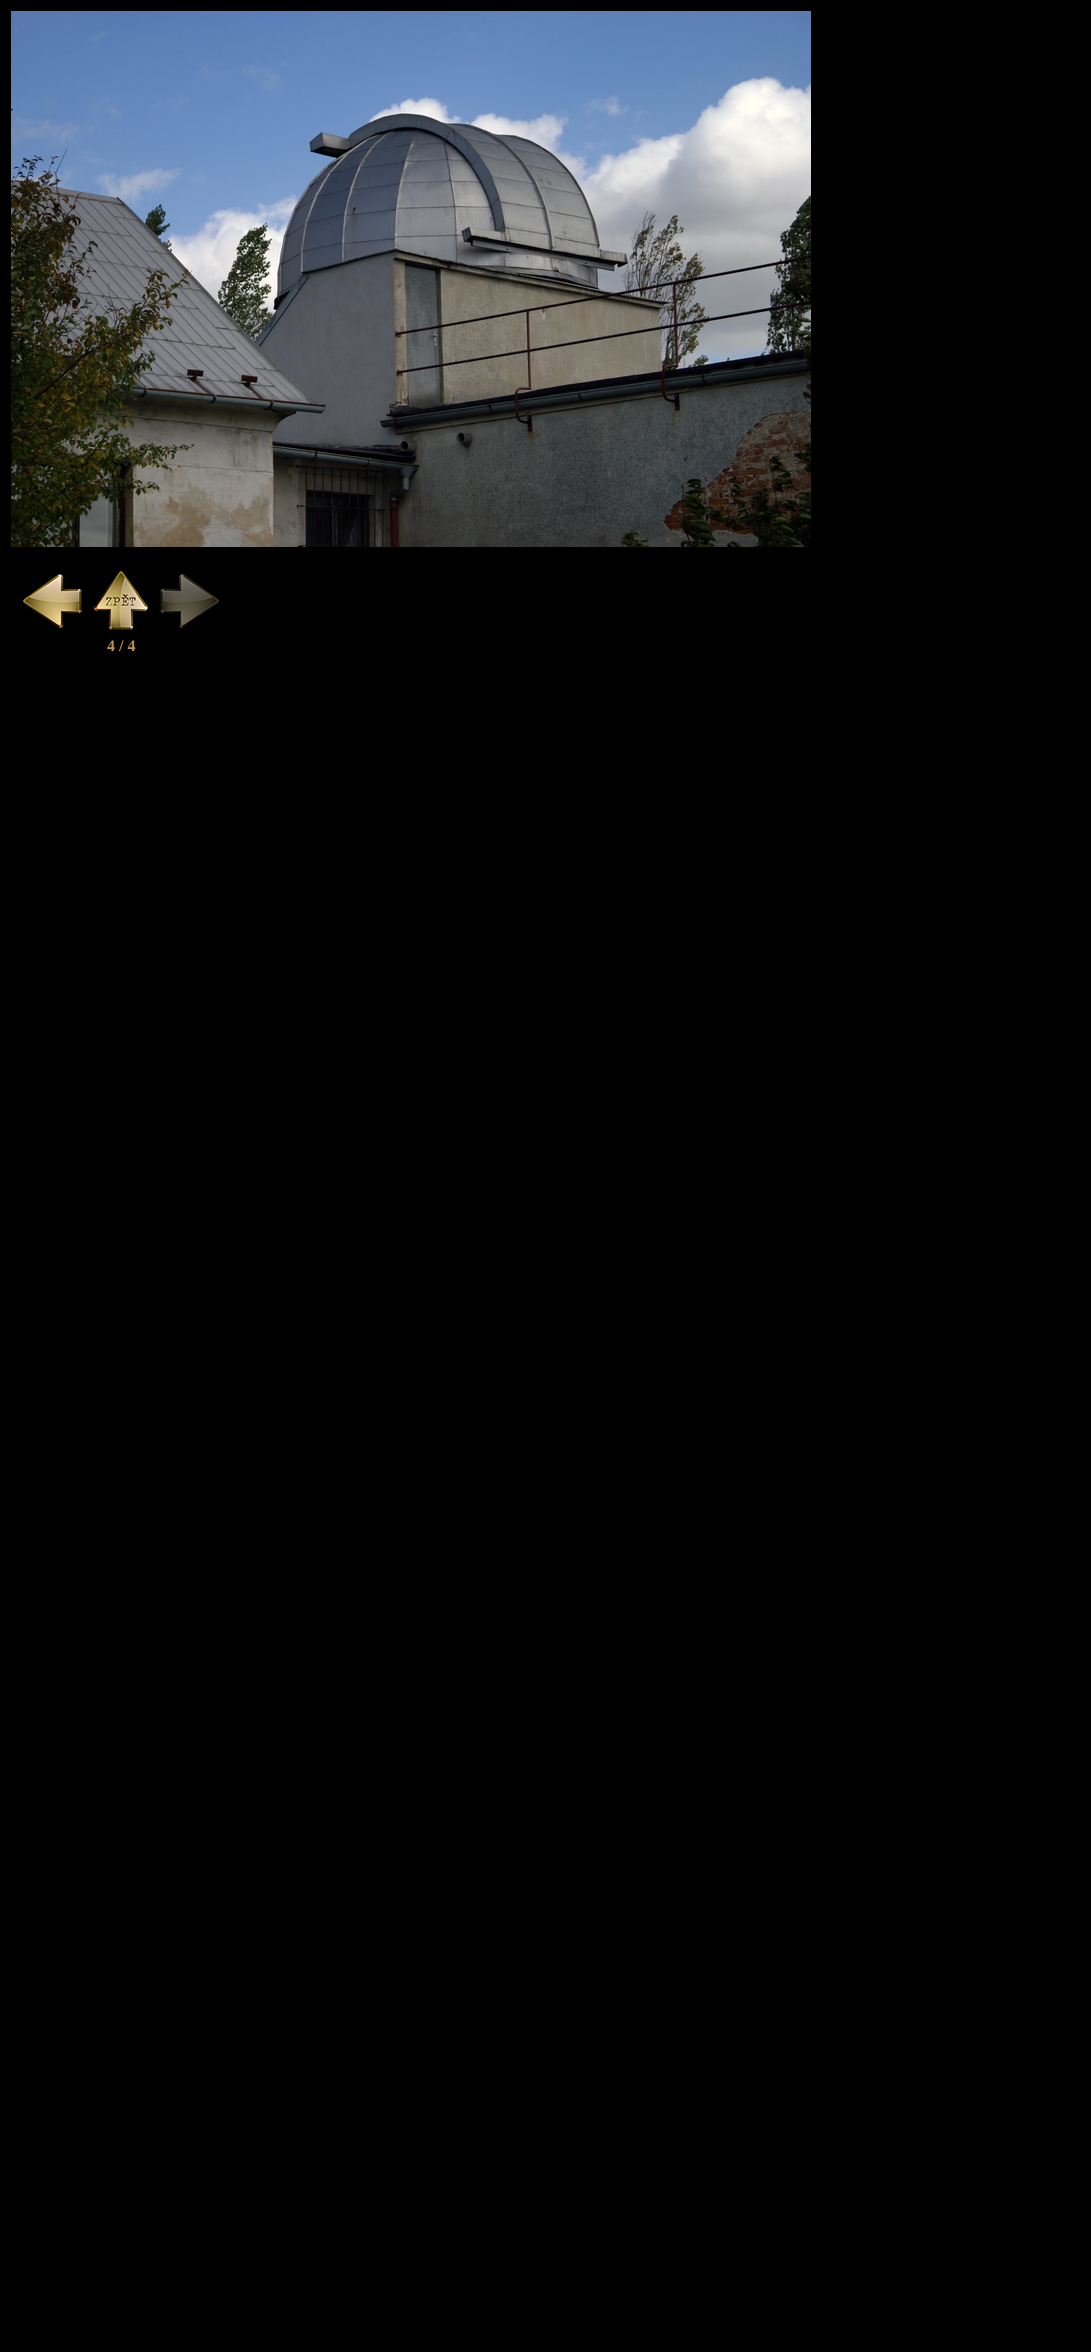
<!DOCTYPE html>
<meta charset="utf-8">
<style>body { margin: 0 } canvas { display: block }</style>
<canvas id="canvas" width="1091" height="2352"></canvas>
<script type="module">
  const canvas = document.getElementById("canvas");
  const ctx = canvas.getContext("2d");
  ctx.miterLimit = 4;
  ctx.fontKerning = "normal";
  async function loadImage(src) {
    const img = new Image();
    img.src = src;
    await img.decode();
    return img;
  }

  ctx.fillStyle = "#000000";
  ctx.fillRect(0, 0, 1091, 2352);
  ctx.drawImage(await loadImage("img1.png"), 11, 11, 800, 536);
  ctx.drawImage(await loadImage("img2.png"), 23, 574, 59, 54);
  ctx.drawImage(await loadImage("img3.png"), 94, 571, 54, 59);
  ctx.drawImage(await loadImage("img4.png"), 160, 574, 59, 54);
  ctx.font = "bold 16px Liberation Serif";
  ctx.fillStyle = "#c18f50";
  ctx.fillText("4 / 4", 107, 651);
</script>
